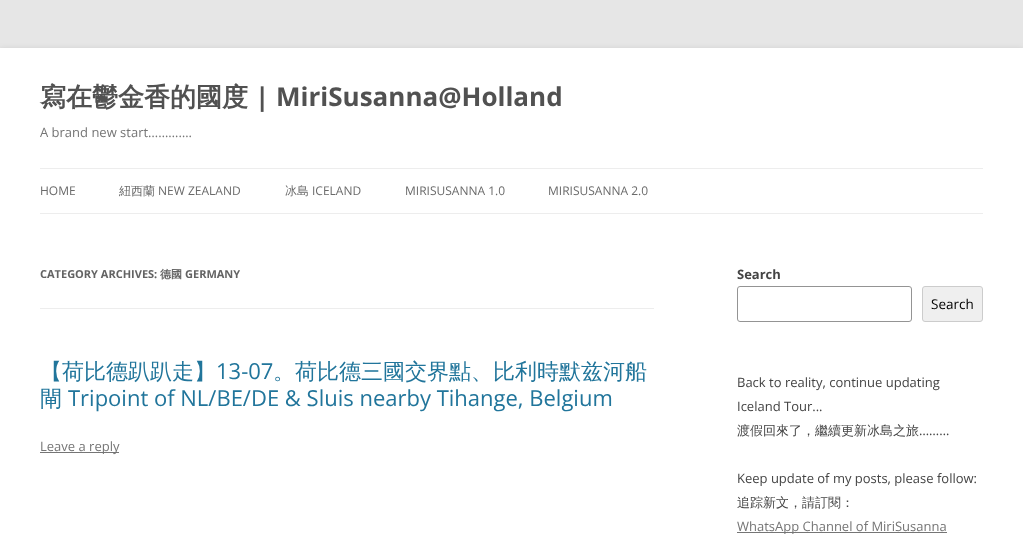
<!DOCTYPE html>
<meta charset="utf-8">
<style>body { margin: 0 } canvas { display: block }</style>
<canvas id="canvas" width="1023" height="534"></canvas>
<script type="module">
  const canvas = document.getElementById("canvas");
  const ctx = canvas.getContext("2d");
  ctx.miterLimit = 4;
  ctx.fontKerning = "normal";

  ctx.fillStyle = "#e6e6e6";
  ctx.fillRect(0, 0, 1023, 534);
  ctx.fillStyle = "rgba(100, 100, 100, 0.3)";
  ctx.filter = "blur(3px)";
  ctx.beginPath();
  ctx.rect(0, 50, 1023, 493);
  ctx.fill();
  ctx.filter = "none";
  ctx.fillStyle = "#ffffff";
  ctx.fillRect(0, 48, 1023, 486);
  ctx.font = "bold 26px WenQuanYi Zen Hei";
  ctx.fillStyle = "#515151";
  ctx.fillText("寫在鬱金香的國度", 40, 106);
  ctx.font = "bold 26px Open Sans";
  ctx.fillText("| MiriSusanna@Holland", 255, 106);
  ctx.font = "13px Open Sans";
  ctx.fillStyle = "#757575";
  ctx.fillText("A brand new start………….", 40, 137);
  ctx.fillStyle = "#ededed";
  ctx.fillRect(40, 168, 943, 1);
  ctx.fillRect(40, 213, 943, 1);
  ctx.font = "12px Open Sans";
  ctx.fillStyle = "#6a6a6a";
  ctx.fillText("HOME", 40, 195);
  ctx.font = "500 12px WenQuanYi Zen Hei";
  ctx.fillText("紐西蘭", 119, 195);
  ctx.font = "12px Open Sans";
  ctx.fillText("NEW ZEALAND", 158, 195);
  ctx.font = "500 12px WenQuanYi Zen Hei";
  ctx.fillText("冰島", 285, 195);
  ctx.font = "12px Open Sans";
  ctx.fillText("ICELAND", 312, 195);
  ctx.fillText("MIRISUSANNA 1.0", 405, 195);
  ctx.fillText("MIRISUSANNA 2.0", 548, 195);
  ctx.fillStyle = "#ededed";
  ctx.fillRect(40, 308, 614, 1);
  ctx.font = "bold 11px Open Sans";
  ctx.fillStyle = "#636363";
  ctx.fillText("CATEGORY ARCHIVES:", 40, 278);
  ctx.font = "bold 11px WenQuanYi Zen Hei";
  ctx.fillText("德國", 160, 278);
  ctx.font = "bold 11px Open Sans";
  ctx.fillText("GERMANY", 185, 278);
  ctx.font = "500 22px WenQuanYi Zen Hei";
  ctx.fillStyle = "#21759b";
  ctx.fillText("【荷比德趴趴走】", 40, 379);
  ctx.font = "22px Open Sans";
  ctx.fillText("13-07", 216, 379);
  ctx.font = "500 22px WenQuanYi Zen Hei";
  ctx.fillText("。荷比德三國交界點、比利時默兹河船", 273, 379);
  ctx.fillText("閘", 40, 406);
  ctx.font = "22px Open Sans";
  ctx.fillText("Tripoint of NL/BE/DE & Sluis nearby Tihange, Belgium", 68, 406);
  ctx.fillStyle = "#757575";
  ctx.fillRect(40, 452, 79, 1);
  ctx.font = "13px Open Sans";
  ctx.fillText("Leave a reply", 40, 451);
  ctx.font = "bold 13px Open Sans";
  ctx.fillStyle = "#444444";
  ctx.fillText("Search", 737, 279);
  ctx.beginPath();
  ctx.roundRect(737.5, 286.5, 174, 35, 2.5);
  ctx.strokeStyle = "#949494";
  ctx.stroke();
  ctx.fillStyle = "#efefef";
  ctx.beginPath();
  ctx.roundRect(922.5, 286.5, 60, 35, 2.5);
  ctx.fill();
  ctx.strokeStyle = "#cccccc";
  ctx.stroke();
  ctx.font = "13.5px Open Sans";
  ctx.fillStyle = "#000000";
  ctx.fillText("Search", 931, 309);
  ctx.font = "13px Open Sans";
  ctx.fillStyle = "#444444";
  ctx.fillText("Back to reality, continue updating", 737, 387);
  ctx.fillText("Iceland Tour...", 737, 411);
  ctx.font = "500 13px WenQuanYi Zen Hei";
  ctx.fillText("渡假回來了，繼續更新冰島之旅", 737, 435);
  ctx.font = "13px Open Sans";
  ctx.fillText("………", 919, 435);
  ctx.fillText("Keep update of my posts, please follow:", 737, 483);
  ctx.font = "500 13px WenQuanYi Zen Hei";
  ctx.fillText("追踪新文，請訂閱：", 737, 507);
  ctx.fillStyle = "#757575";
  ctx.fillRect(737, 532, 210, 1);
  ctx.font = "13px Open Sans";
  ctx.fillText("WhatsApp Channel of MiriSusanna", 737, 531);
</script>
